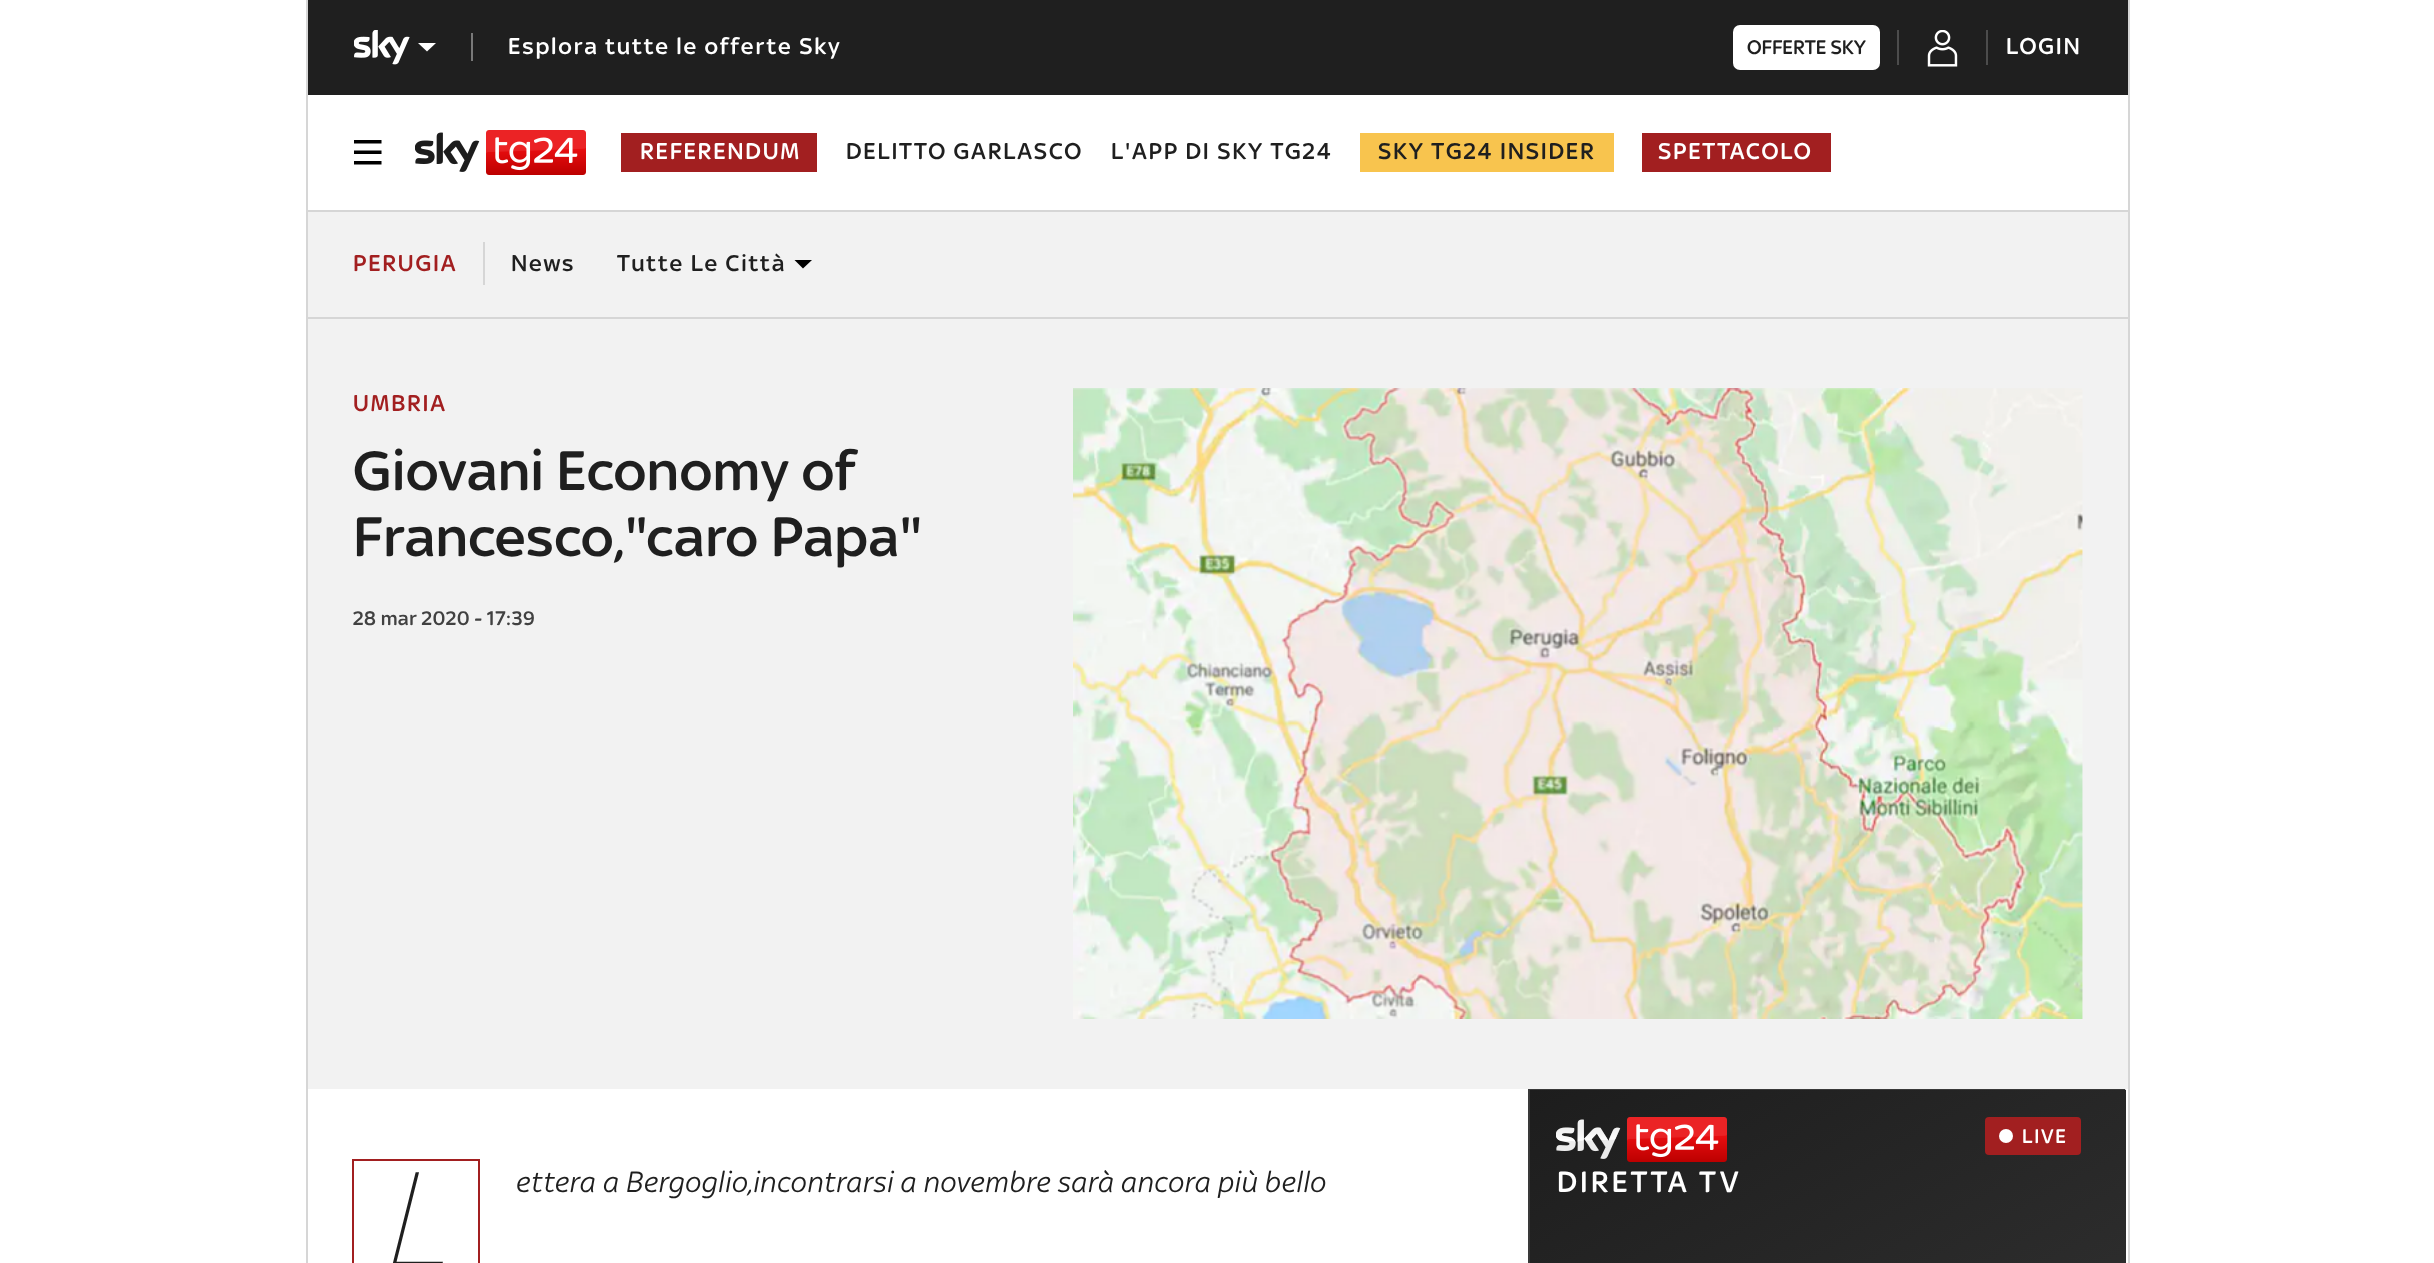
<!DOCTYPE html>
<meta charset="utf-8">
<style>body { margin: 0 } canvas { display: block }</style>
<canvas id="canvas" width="2434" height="1263"></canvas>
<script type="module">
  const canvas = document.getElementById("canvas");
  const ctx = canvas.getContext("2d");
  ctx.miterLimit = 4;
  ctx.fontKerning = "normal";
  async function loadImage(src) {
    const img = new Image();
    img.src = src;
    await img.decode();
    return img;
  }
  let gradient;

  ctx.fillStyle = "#ffffff";
  ctx.fillRect(0, 0, 2434, 1263);
  ctx.fillStyle = "#d6d6d6";
  ctx.beginPath();
  ctx.moveTo(306, 0);
  ctx.lineTo(306, 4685);
  ctx.lineTo(2126, 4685);
  ctx.lineTo(308, 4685);
  ctx.lineTo(308, 0);
  ctx.closePath();
  ctx.fill();
  ctx.beginPath();
  ctx.moveTo(310, 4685);
  ctx.lineTo(2130, 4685);
  ctx.lineTo(2130, 0);
  ctx.lineTo(2128, 0);
  ctx.lineTo(2128, 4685);
  ctx.closePath();
  ctx.fill();
  ctx.fillStyle = "#1f1f1f";
  ctx.fillRect(308, 0, 1820, 95);
  ctx.drawImage(await loadImage("img1.png"), 354, 30, 56, 35);
  ctx.fillStyle = "#ffffff";
  ctx.beginPath();
  ctx.moveTo(418, 43);
  ctx.lineTo(436, 43);
  ctx.lineTo(427, 51.5);
  ctx.closePath();
  ctx.fill("evenodd");
  ctx.fillStyle = "#797979";
  ctx.fillRect(471, 33, 2, 28);
  ctx.letterSpacing = "1.75px";
  ctx.font = "500 24.5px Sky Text";
  ctx.fillStyle = "#ffffff";
  ctx.fillText("Esplora tutte le offerte Sky", 508, 54);
  ctx.beginPath();
  ctx.roundRect(1733, 25, 147, 45, 7);
  ctx.fill();
  ctx.letterSpacing = "0px";
  ctx.font = "500 21px Sky Text";
  ctx.fillStyle = "#1f1f1f";
  ctx.fillText("OFFERTE SKY", 1747, 54);
  ctx.fillStyle = "#4c4c4c";
  ctx.fillRect(1897, 30, 2, 35);
  ctx.drawImage(await loadImage("img2.png"), 1927, 30, 31, 37);
  ctx.fillRect(1986, 30, 2, 35);
  ctx.letterSpacing = "1.75px";
  ctx.font = "500 24.5px Sky Text";
  ctx.fillStyle = "#ffffff";
  ctx.fillText("LOGIN", 2006, 54);
  ctx.fillStyle = "#d6d6d6";
  ctx.fillRect(308, 210, 1820, 2);
  ctx.drawImage(await loadImage("img3.png"), 354, 140, 28, 25);
  ctx.drawImage(await loadImage("img4.png"), 415, 130, 171, 45);
  ctx.fillStyle = "#a21f20";
  ctx.fillRect(621, 133, 196, 39);
  ctx.fillStyle = "#ffffff";
  ctx.fillText("REFERENDUM", 640, 159);
  ctx.fillStyle = "#1f1f1f";
  ctx.fillText("DELITTO GARLASCO", 846, 159);
  ctx.fillText("L'APP DI SKY TG24", 1111, 159);
  ctx.fillStyle = "#f8c44e";
  ctx.fillRect(1360, 133, 254, 39);
  ctx.fillStyle = "#1f1f1f";
  ctx.fillText("SKY TG24 INSIDER", 1378, 159);
  ctx.fillStyle = "#a21f20";
  ctx.fillRect(1642, 133, 189, 39);
  ctx.fillStyle = "#ffffff";
  ctx.fillText("SPETTACOLO", 1658, 159);
  ctx.fillStyle = "#f2f2f2";
  ctx.fillRect(308, 212, 1820, 105);
  ctx.fillStyle = "#d6d6d6";
  ctx.fillRect(308, 317, 1820, 2);
  ctx.fillRect(483, 242, 2, 43);
  ctx.fillStyle = "#a21f20";
  ctx.fillText("PERUGIA", 353, 271);
  ctx.fillStyle = "#1f1f1f";
  ctx.fillText("News", 511, 271);
  ctx.fillText("Tutte Le Città", 617, 271);
  ctx.fillStyle = "#000000";
  ctx.beginPath();
  ctx.moveTo(794.5, 260);
  ctx.lineTo(812, 260);
  ctx.lineTo(803, 268.5);
  ctx.closePath();
  ctx.fill("evenodd");
  ctx.fillStyle = "#f2f2f2";
  ctx.fillRect(308, 319, 1820, 770);
  ctx.fillStyle = "#a21f20";
  ctx.fillText("UMBRIA", 353, 411);
  ctx.letterSpacing = "0.35px";
  ctx.font = "500 59.5px Sky Text";
  ctx.fillStyle = "#1f1f1f";
  ctx.fillText("Giovani Economy of", 353, 490);
  ctx.fillText("Francesco,\"caro Papa\"", 353, 556);
  ctx.font = "500 21px Sky Text";
  ctx.fillStyle = "#414141";
  ctx.fillText("28 mar 2020 - 17:39", 353, 625);
  ctx.drawImage(await loadImage("img5.png"), 1073, 388, 1010, 631);
  ctx.fillStyle = "#d6d6d6";
  ctx.fillRect(2125, 1089, 1, 1);
  ctx.fillStyle = "#393939";
  ctx.fillRect(1528, 1089, 597, 174);
  gradient = ctx.createLinearGradient(2024, 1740, 1632, 1033);
  gradient.addColorStop(0, "#393939");
  gradient.addColorStop(1, "#1d1d1d");
  ctx.fillStyle = gradient;
  ctx.fillRect(1530, 1090, 596, 173);
  ctx.fillStyle = "#a21f20";
  ctx.beginPath();
  ctx.roundRect(1985, 1117, 96, 38, 4);
  ctx.fill();
  ctx.fillStyle = "#ffffff";
  ctx.beginPath();
  ctx.arc(2006, 1136, 7, 0, Math.PI * 2);
  ctx.fill();
  ctx.letterSpacing = "1.75px";
  ctx.fillText("LIVE", 2022, 1143);
  ctx.drawImage(await loadImage("img6.png"), 1556, 1117, 171, 45);
  ctx.letterSpacing = "3.1px";
  ctx.font = "500 31.5px Sky Text";
  ctx.fillText("DIRETTA TV", 1557, 1192);
  ctx.strokeStyle = "#a21f20";
  ctx.lineWidth = 2;
  ctx.strokeRect(353, 1160, 126, 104);
  ctx.letterSpacing = "0.35px";
  ctx.font = "italic 100 130px Noto Sans";
  ctx.fillStyle = "#1f1f1f";
  ctx.fillText("L", 379, 1265);
  ctx.font = "italic 31.5px Sky Text";
  ctx.fillText("ettera a Bergoglio,incontrarsi a novembre sarà ancora più bello", 515, 1192);
</script>
